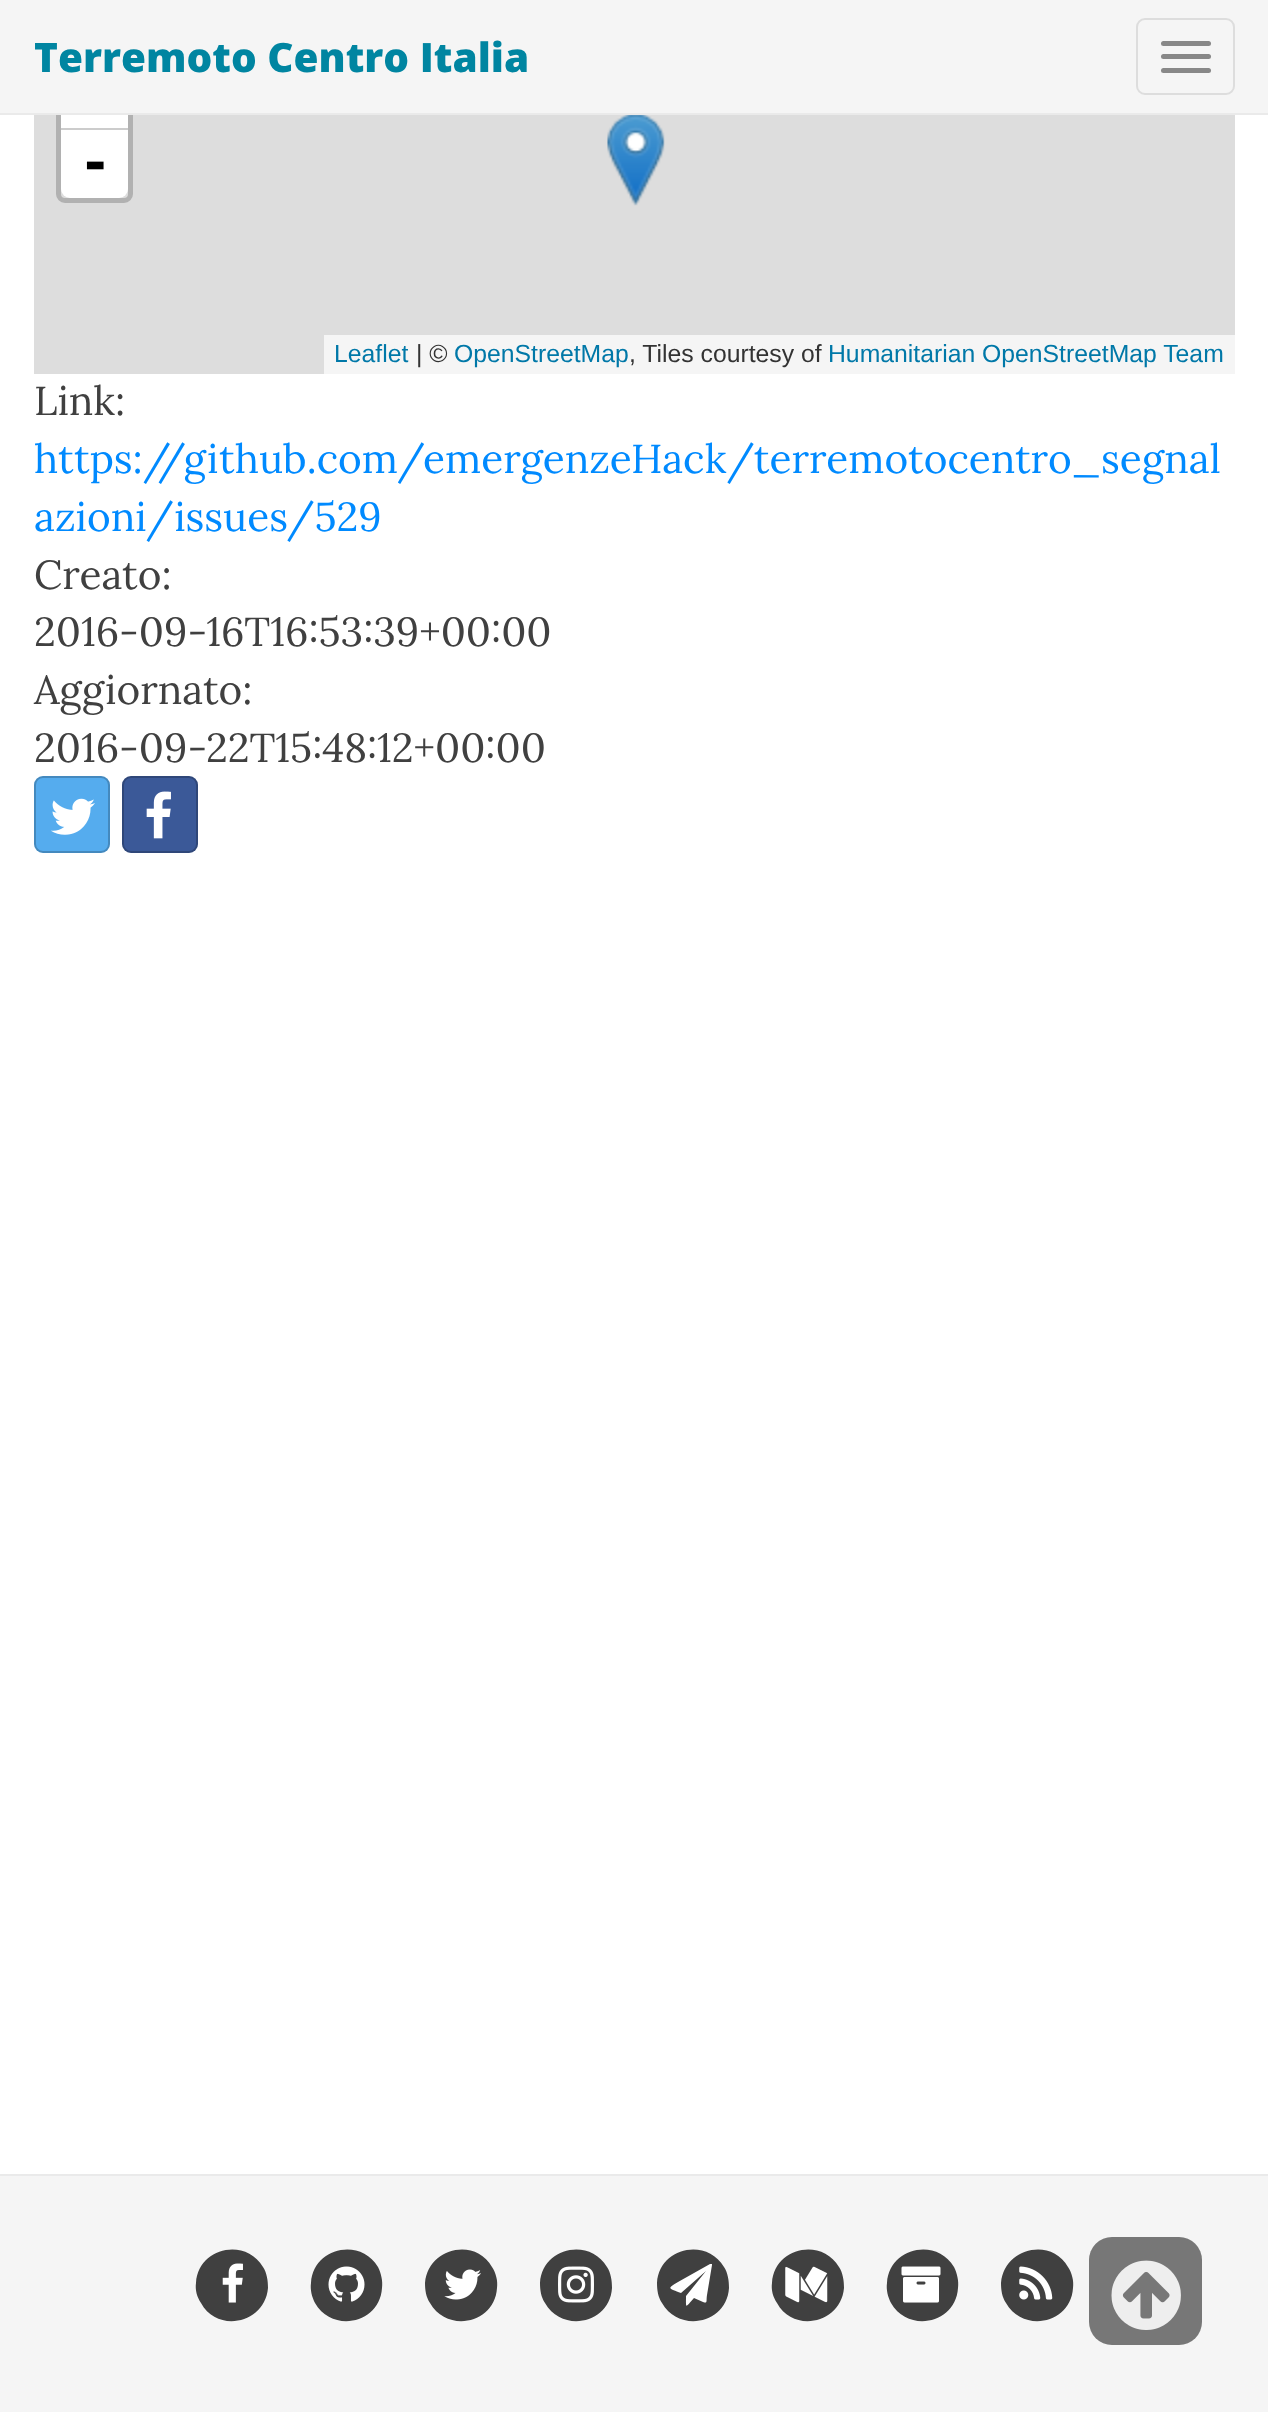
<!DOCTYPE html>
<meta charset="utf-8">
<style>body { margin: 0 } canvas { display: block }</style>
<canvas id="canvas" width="1268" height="2412"></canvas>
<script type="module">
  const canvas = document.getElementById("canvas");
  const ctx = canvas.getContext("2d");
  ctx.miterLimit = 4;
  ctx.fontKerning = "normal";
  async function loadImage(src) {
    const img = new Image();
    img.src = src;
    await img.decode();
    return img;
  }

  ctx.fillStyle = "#ffffff";
  ctx.fillRect(0, 0, 1268, 2412);
  ctx.fillStyle = "#dddddd";
  ctx.fillRect(34, 115, 1201, 259);
  ctx.beginPath();
  ctx.roundRect(58.5, 61.5, 72, 139, 6.5);
  ctx.strokeStyle = "#b1b1b1";
  ctx.lineWidth = 5;
  ctx.stroke();
  ctx.fillStyle = "#f5f5f5";
  ctx.fillRect(0, 0, 1268, 113);
  ctx.fillStyle = "#eaeaea";
  ctx.fillRect(0, 113, 1268, 2);
  ctx.font = "800 40.5px Open Sans";
  ctx.fillStyle = "#0085a1";
  ctx.fillText("Terremoto Centro Italia", 34, 72);
  ctx.beginPath();
  ctx.roundRect(1137, 19, 97, 75, 8);
  ctx.strokeStyle = "#dddddd";
  ctx.lineWidth = 2;
  ctx.stroke();
  ctx.fillStyle = "#888888";
  ctx.beginPath();
  ctx.roundRect(1161, 41, 50, 5, 2.5);
  ctx.fill();
  ctx.beginPath();
  ctx.roundRect(1161, 54, 50, 5, 2.5);
  ctx.fill();
  ctx.beginPath();
  ctx.roundRect(1161, 68, 50, 5, 2.5);
  ctx.fill();
  ctx.drawImage(await loadImage("img1.png"), 607, 115, 58, 91);
  ctx.fillStyle = "#ffffff";
  ctx.fillRect(61, 115, 67, 16);
  ctx.fillStyle = "#cccccc";
  ctx.fillRect(61, 128, 67, 2);
  ctx.fillStyle = "#ffffff";
  ctx.beginPath();
  ctx.roundRect(61, 131, 67, 67, [0, 0, 9, 9]);
  ctx.fill();
  ctx.font = "bold 54px DejaVu Sans Mono";
  ctx.fillStyle = "#000000";
  ctx.fillText("-", 79, 181);
  ctx.fillStyle = "#f5f5f5";
  ctx.fillRect(324, 335, 911, 39);
  ctx.font = "24.75px Liberation Sans";
  ctx.fillStyle = "#0078a8";
  ctx.fillText("Leaflet", 334, 362);
  ctx.fillStyle = "#333333";
  ctx.fillText("| ©", 416, 362);
  ctx.fillStyle = "#0078a8";
  ctx.fillText("OpenStreetMap", 454, 362);
  ctx.fillStyle = "#333333";
  ctx.fillText(", Tiles courtesy of", 629, 362);
  ctx.fillStyle = "#0078a8";
  ctx.fillText("Humanitarian OpenStreetMap Team", 828, 362);
  ctx.font = "40.5px Lora";
  ctx.fillStyle = "#404040";
  ctx.fillText("Link:", 34, 415);
  ctx.fillStyle = "#008aff";
  ctx.fillText("https://github.com/emergenzeHack/terremotocentro_segnal", 34, 473);
  ctx.fillText("azioni/issues/529", 34, 531);
  ctx.fillStyle = "#404040";
  ctx.fillText("Creato:", 34, 589);
  ctx.fillText("2016-09-16T16:53:39+00:00", 34, 646);
  ctx.fillText("Aggiornato:", 34, 704);
  ctx.fillText("2016-09-22T15:48:12+00:00", 34, 762);
  ctx.fillStyle = "#55acee";
  ctx.beginPath();
  ctx.roundRect(34, 776, 76, 77, 9);
  ctx.fill();
  ctx.beginPath();
  ctx.roundRect(35, 777, 74, 75, 8);
  ctx.strokeStyle = "rgba(0, 0, 0, 0.2)";
  ctx.stroke();
  ctx.drawImage(await loadImage("img2.png"), 51, 798, 44, 37);
  ctx.fillStyle = "#3b5998";
  ctx.beginPath();
  ctx.roundRect(122, 776, 76, 77, 9);
  ctx.fill();
  ctx.beginPath();
  ctx.roundRect(123, 777, 74, 75, 8);
  ctx.stroke();
  ctx.drawImage(await loadImage("img3.png"), 146, 791, 25, 48);
  ctx.fillStyle = "#f5f5f5";
  ctx.fillRect(0, 2176, 1268, 236);
  ctx.fillStyle = "#eaeaea";
  ctx.fillRect(0, 2174, 1268, 2);
  ctx.fillStyle = "#404040";
  ctx.beginPath();
  ctx.moveTo(263, 2267);
  ctx.bezierCurveTo(267, 2273, 268, 2281, 268, 2288);
  ctx.bezierCurveTo(265, 2323, 218, 2334, 201, 2303);
  ctx.bezierCurveTo(197, 2297, 195, 2290, 196, 2283);
  ctx.bezierCurveTo(198, 2248, 245, 2237, 263, 2267);
  ctx.closePath();
  ctx.fill();
  ctx.drawImage(await loadImage("img4.png"), 222, 2263, 21, 40);
  ctx.beginPath();
  ctx.moveTo(378, 2267);
  ctx.bezierCurveTo(381, 2273, 383, 2281, 382, 2288);
  ctx.bezierCurveTo(380, 2323, 333, 2334, 315, 2303);
  ctx.bezierCurveTo(312, 2297, 310, 2290, 311, 2283);
  ctx.bezierCurveTo(313, 2248, 360, 2237, 378, 2267);
  ctx.closePath();
  ctx.fill();
  ctx.drawImage(await loadImage("img5.png"), 328, 2266, 37, 36);
  ctx.beginPath();
  ctx.moveTo(492, 2267);
  ctx.bezierCurveTo(496, 2273, 498, 2281, 497, 2288);
  ctx.bezierCurveTo(495, 2323, 448, 2334, 430, 2303);
  ctx.bezierCurveTo(426, 2297, 425, 2290, 425, 2283);
  ctx.bezierCurveTo(428, 2248, 475, 2237, 492, 2267);
  ctx.closePath();
  ctx.fill();
  ctx.drawImage(await loadImage("img6.png"), 444, 2269, 37, 31);
  ctx.beginPath();
  ctx.moveTo(607, 2267);
  ctx.bezierCurveTo(611, 2273, 612, 2281, 612, 2288);
  ctx.bezierCurveTo(610, 2323, 563, 2334, 545, 2303);
  ctx.bezierCurveTo(541, 2297, 540, 2290, 540, 2283);
  ctx.bezierCurveTo(542, 2248, 589, 2237, 607, 2267);
  ctx.closePath();
  ctx.fill();
  ctx.drawImage(await loadImage("img7.png"), 558, 2266, 36, 37);
  ctx.beginPath();
  ctx.moveTo(724, 2267);
  ctx.bezierCurveTo(728, 2273, 729, 2281, 729, 2288);
  ctx.bezierCurveTo(727, 2323, 680, 2334, 662, 2303);
  ctx.bezierCurveTo(658, 2297, 657, 2290, 657, 2283);
  ctx.bezierCurveTo(659, 2248, 706, 2237, 724, 2267);
  ctx.closePath();
  ctx.fill();
  ctx.fillStyle = "#ffffff";
  ctx.beginPath();
  ctx.moveTo(712, 2264);
  ctx.lineTo(712, 2265);
  ctx.lineTo(707, 2295);
  ctx.bezierCurveTo(706, 2301, 708, 2304, 703, 2302);
  ctx.lineTo(694, 2298);
  ctx.bezierCurveTo(685, 2308, 686, 2309, 686, 2296);
  ctx.lineTo(706, 2271);
  ctx.lineTo(681, 2293);
  ctx.bezierCurveTo(669, 2288, 666, 2289, 678, 2282);
  ctx.lineTo(710, 2264);
  ctx.closePath();
  ctx.fill();
  ctx.fillStyle = "#404040";
  ctx.beginPath();
  ctx.moveTo(839, 2267);
  ctx.bezierCurveTo(843, 2273, 844, 2281, 844, 2288);
  ctx.bezierCurveTo(841, 2323, 794, 2334, 777, 2303);
  ctx.bezierCurveTo(773, 2297, 771, 2290, 772, 2283);
  ctx.bezierCurveTo(774, 2248, 821, 2237, 839, 2267);
  ctx.closePath();
  ctx.fill();
  ctx.drawImage(await loadImage("img8.png"), 785, 2266, 43, 37);
  ctx.beginPath();
  ctx.moveTo(954, 2267);
  ctx.bezierCurveTo(957, 2273, 959, 2281, 958, 2288);
  ctx.bezierCurveTo(956, 2323, 909, 2334, 891, 2303);
  ctx.bezierCurveTo(888, 2297, 886, 2290, 887, 2283);
  ctx.bezierCurveTo(889, 2248, 936, 2237, 954, 2267);
  ctx.closePath();
  ctx.fill();
  ctx.drawImage(await loadImage("img9.png"), 901, 2266, 40, 37);
  ctx.beginPath();
  ctx.moveTo(1068, 2267);
  ctx.bezierCurveTo(1072, 2273, 1074, 2281, 1073, 2288);
  ctx.bezierCurveTo(1071, 2323, 1024, 2334, 1006, 2303);
  ctx.bezierCurveTo(1002, 2297, 1001, 2290, 1001, 2283);
  ctx.bezierCurveTo(1004, 2248, 1051, 2237, 1068, 2267);
  ctx.closePath();
  ctx.fill();
  ctx.drawImage(await loadImage("img10.png"), 1019, 2266, 34, 34);
  ctx.fillStyle = "#777777";
  ctx.beginPath();
  ctx.roundRect(1089, 2237, 113, 108, 23);
  ctx.fill();
  ctx.drawImage(await loadImage("img11.png"), 1111, 2260, 70, 70);
</script>
